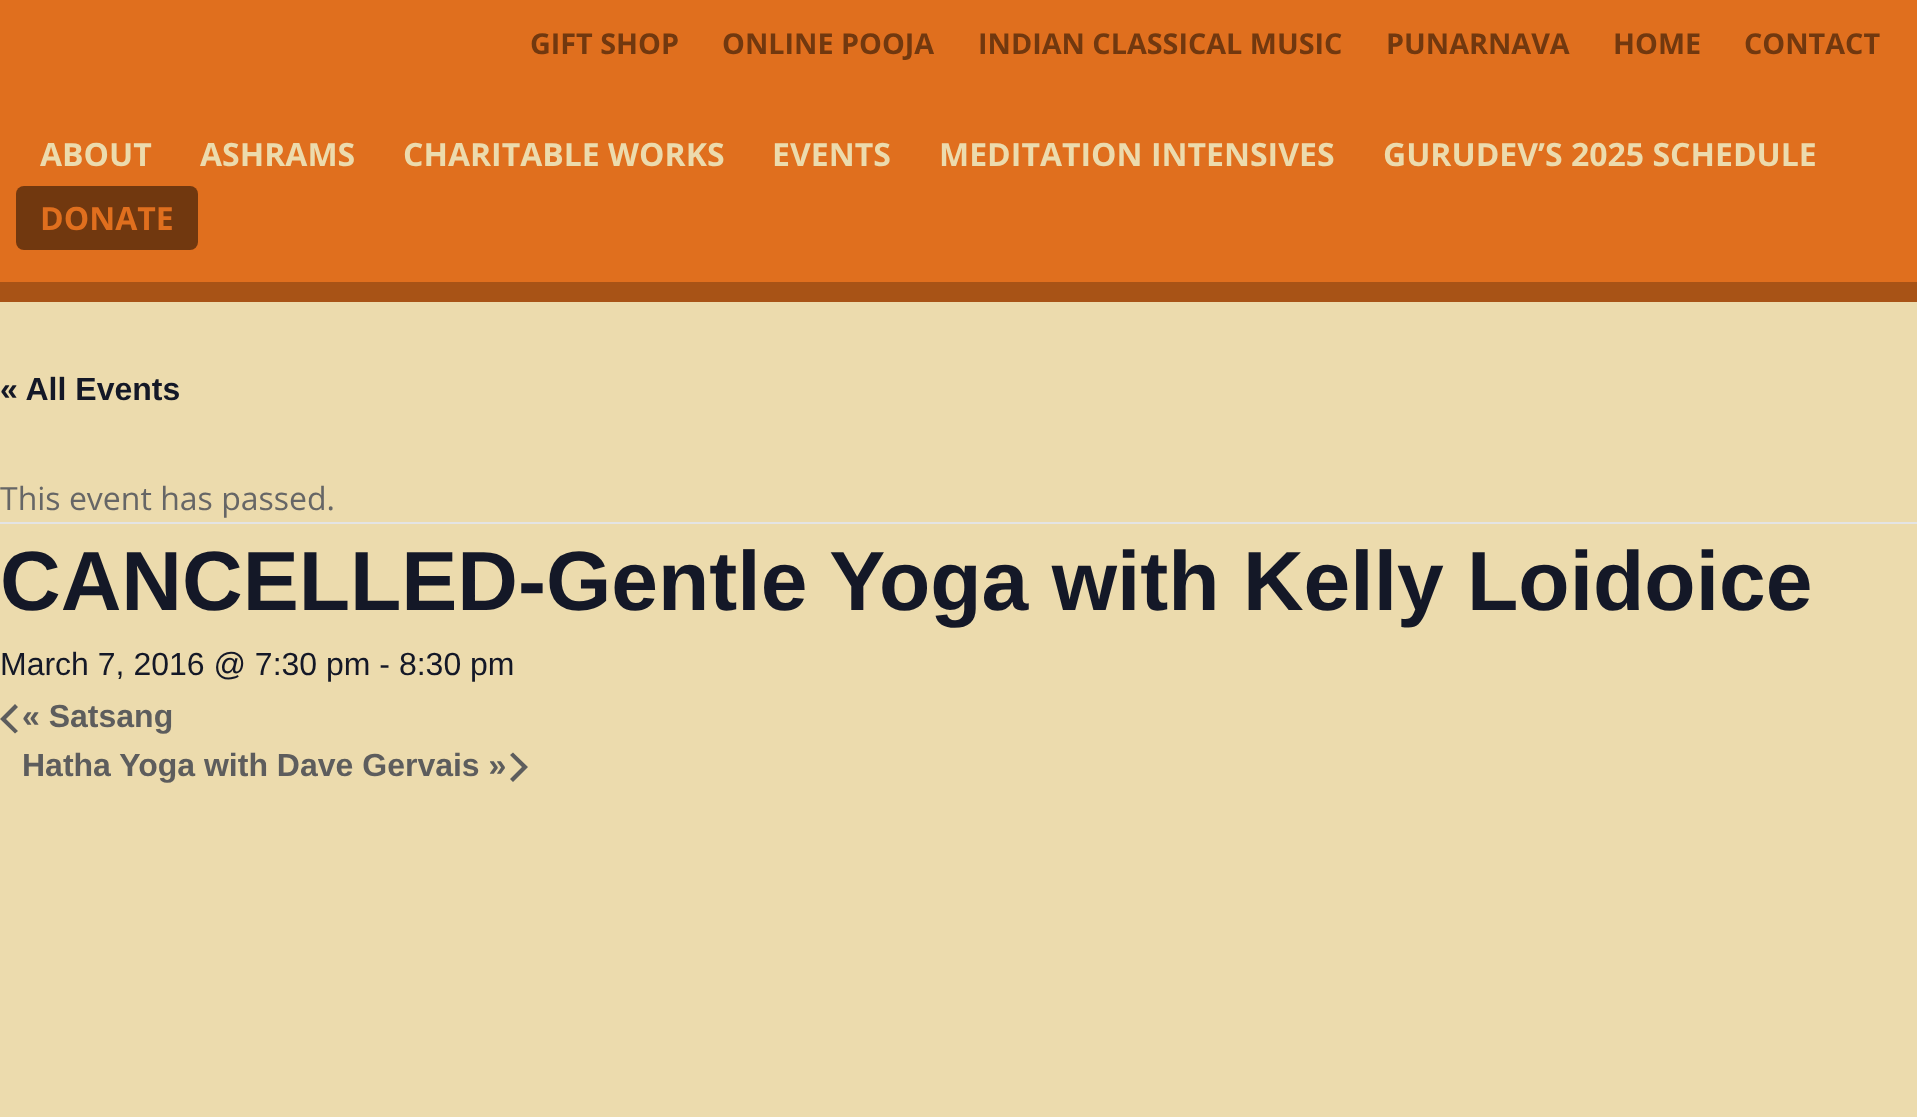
<!DOCTYPE html>
<meta charset="utf-8">
<style>body { margin: 0 } canvas { display: block }</style>
<canvas id="canvas" width="1917" height="1117"></canvas>
<script type="module">
  const canvas = document.getElementById("canvas");
  const ctx = canvas.getContext("2d");
  ctx.miterLimit = 4;
  ctx.fontKerning = "normal";

  ctx.fillStyle = "#e06f1e";
  ctx.fillRect(0, 0, 1917, 1117);
  ctx.fillStyle = "#a85316";
  ctx.fillRect(0, 282, 1917, 20);
  ctx.font = "bold 28.75px Open Sans";
  ctx.fillStyle = "#71380f";
  ctx.fillText("GIFT SHOP", 530, 54);
  ctx.fillText("ONLINE POOJA", 722, 54);
  ctx.fillText("INDIAN CLASSICAL MUSIC", 978, 54);
  ctx.fillText("PUNARNAVA", 1386, 54);
  ctx.fillText("HOME", 1613, 54);
  ctx.fillText("CONTACT", 1744, 54);
  ctx.font = "bold 32px Open Sans";
  ctx.fillStyle = "#ecdbad";
  ctx.fillText("ABOUT", 40, 166);
  ctx.fillText("ASHRAMS", 200, 166);
  ctx.fillText("CHARITABLE WORKS", 403, 166);
  ctx.fillText("EVENTS", 772, 166);
  ctx.fillText("MEDITATION INTENSIVES", 939, 166);
  ctx.fillText("GURUDEV’S 2025 SCHEDULE", 1383, 166);
  ctx.fillStyle = "#71380f";
  ctx.beginPath();
  ctx.roundRect(16, 186, 182, 64, 8);
  ctx.fill();
  ctx.fillStyle = "#e06f1e";
  ctx.fillText("DONATE", 40, 230);
  ctx.fillStyle = "#ecdbad";
  ctx.fillRect(0, 302, 1917, 815);
  ctx.font = "bold 32px Liberation Sans";
  ctx.fillStyle = "#141827";
  ctx.fillText("« All Events", 0, 400);
  ctx.fillStyle = "#e4e4e4";
  ctx.fillRect(0, 522, 1917, 2);
  ctx.font = "32px Open Sans";
  ctx.fillStyle = "#666666";
  ctx.fillText("This event has passed.", 0, 510);
  ctx.font = "bold 84px Liberation Sans";
  ctx.fillStyle = "#141827";
  ctx.fillText("CANCELLED-Gentle Yoga with Kelly Loidoice", 0, 610);
  ctx.font = "32px Liberation Sans";
  ctx.fillText("March 7, 2016 @ 7:30 pm - 8:30 pm", 0, 675);
  ctx.fillStyle = "#5d5d5d";
  ctx.beginPath();
  ctx.moveTo(18, 731);
  ctx.lineTo(15, 733.5);
  ctx.lineTo(0, 719);
  ctx.lineTo(15, 704);
  ctx.lineTo(18, 707);
  ctx.lineTo(6, 719);
  ctx.closePath();
  ctx.fill();
  ctx.font = "bold 32px Liberation Sans";
  ctx.fillText("« Satsang", 22, 727);
  ctx.fillText("Hatha Yoga with Dave Gervais »", 22, 776);
  ctx.beginPath();
  ctx.moveTo(510, 755);
  ctx.lineTo(513, 752.5);
  ctx.lineTo(528, 767);
  ctx.lineTo(513, 782);
  ctx.lineTo(510, 779);
  ctx.lineTo(522, 767);
  ctx.closePath();
  ctx.fill();
</script>
